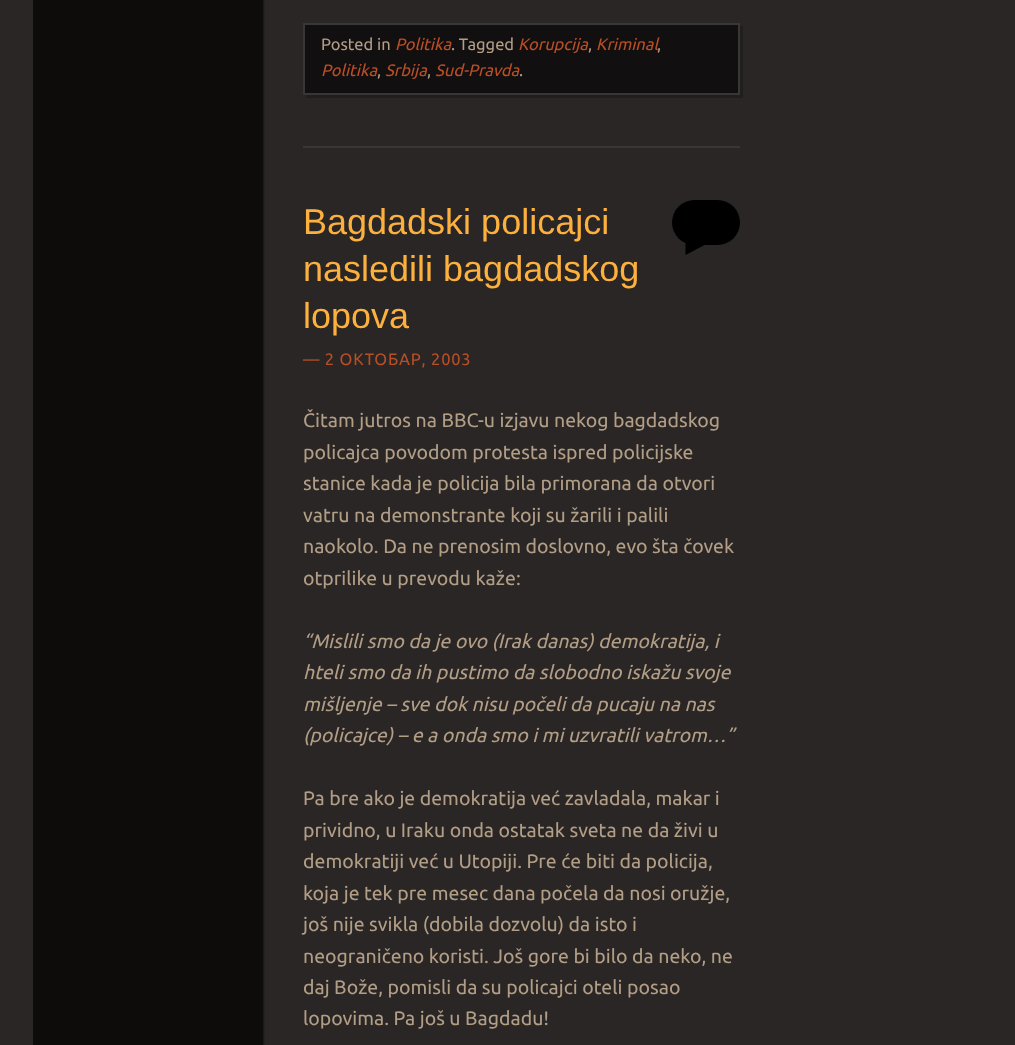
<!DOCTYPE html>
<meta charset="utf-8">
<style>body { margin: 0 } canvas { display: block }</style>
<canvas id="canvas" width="1015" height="1045"></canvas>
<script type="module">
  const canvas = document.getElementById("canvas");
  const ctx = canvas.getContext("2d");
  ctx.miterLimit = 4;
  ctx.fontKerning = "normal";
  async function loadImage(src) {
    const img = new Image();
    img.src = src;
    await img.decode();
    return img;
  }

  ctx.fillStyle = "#292625";
  ctx.fillRect(0, 0, 1015, 1045);
  ctx.drawImage(await loadImage("img1.png"), 33, 0, 232, 1045);
  ctx.fillStyle = "#393636";
  ctx.fillRect(303, 146, 437, 2);
  ctx.fillStyle = "#211e1e";
  ctx.beginPath();
  ctx.moveTo(306, 94);
  ctx.lineTo(306, 98);
  ctx.lineTo(743, 98);
  ctx.lineTo(743, 26);
  ctx.lineTo(740, 26);
  ctx.lineTo(740, 94);
  ctx.closePath();
  ctx.fill();
  ctx.fillStyle = "#120f10";
  ctx.beginPath();
  ctx.rect(304, 24, 435, 70);
  ctx.fill();
  ctx.strokeStyle = "#393636";
  ctx.lineWidth = 2;
  ctx.stroke();
  ctx.font = "16.5px Ubuntu";
  ctx.fillStyle = "#b29d85";
  ctx.fillText("Posted in", 321, 50);
  ctx.font = "italic 16.5px Ubuntu";
  ctx.fillStyle = "#b94f25";
  ctx.fillText("Politika", 395, 50);
  ctx.font = "16.5px Ubuntu";
  ctx.fillStyle = "#b29d85";
  ctx.fillText(". Tagged", 451, 50);
  ctx.font = "italic 16.5px Ubuntu";
  ctx.fillStyle = "#b94f25";
  ctx.fillText("Korupcija", 518, 50);
  ctx.font = "16.5px Ubuntu";
  ctx.fillStyle = "#b29d85";
  ctx.fillText(",", 588, 50);
  ctx.font = "italic 16.5px Ubuntu";
  ctx.fillStyle = "#b94f25";
  ctx.fillText("Kriminal", 596, 50);
  ctx.font = "16.5px Ubuntu";
  ctx.fillStyle = "#b29d85";
  ctx.fillText(",", 657, 50);
  ctx.font = "italic 16.5px Ubuntu";
  ctx.fillStyle = "#b94f25";
  ctx.fillText("Politika", 321, 76);
  ctx.font = "16.5px Ubuntu";
  ctx.fillStyle = "#b29d85";
  ctx.fillText(",", 377, 76);
  ctx.font = "italic 16.5px Ubuntu";
  ctx.fillStyle = "#b94f25";
  ctx.fillText("Srbija", 385, 76);
  ctx.font = "16.5px Ubuntu";
  ctx.fillStyle = "#b29d85";
  ctx.fillText(",", 427, 76);
  ctx.font = "italic 16.5px Ubuntu";
  ctx.fillStyle = "#b94f25";
  ctx.fillText("Sud-Pravda", 435, 76);
  ctx.font = "16.5px Ubuntu";
  ctx.fillStyle = "#b29d85";
  ctx.fillText(".", 519, 76);
  ctx.font = "36px Liberation Sans";
  ctx.fillStyle = "#fcb03e";
  ctx.fillText("Bagdadski policajci", 303, 234);
  ctx.fillText("nasledili bagdadskog", 303, 281);
  ctx.fillText("lopova", 303, 328);
  ctx.fillStyle = "#000000";
  ctx.beginPath();
  ctx.roundRect(672, 200, 68, 45, 22.5);
  ctx.fill();
  ctx.beginPath();
  ctx.moveTo(685.5, 255);
  ctx.lineTo(685.5, 240);
  ctx.lineTo(714, 240);
  ctx.closePath();
  ctx.fill();
  ctx.letterSpacing = "0.8px";
  ctx.font = "16.5px Ubuntu";
  ctx.fillStyle = "#b94f25";
  ctx.fillText("— 2 ОКТОБАР, 2003", 303, 365);
  ctx.letterSpacing = "0px";
  ctx.font = "19.5px Ubuntu";
  ctx.fillStyle = "#b29d85";
  ctx.fillText("Čitam jutros na BBC-u izjavu nekog bagdadskog", 303, 427);
  ctx.fillText("policajca povodom protesta ispred policijske", 303, 459);
  ctx.fillText("stanice kada je policija bila primorana da otvori", 303, 490);
  ctx.fillText("vatru na demonstrante koji su žarili i palili", 303, 522);
  ctx.fillText("naokolo. Da ne prenosim doslovno, evo šta čovek", 303, 553);
  ctx.fillText("otprilike u prevodu kaže:", 303, 585);
  ctx.font = "italic 19.5px Ubuntu";
  ctx.fillText("“Mislili smo da je ovo (Irak danas) demokratija, i", 303, 648);
  ctx.fillText("hteli smo da ih pustimo da slobodno iskažu svoje", 303, 679);
  ctx.fillText("mišljenje – sve dok nisu počeli da pucaju na nas", 303, 711);
  ctx.fillText("(policajce) – e a onda smo i mi uzvratili vatrom…”", 303, 742);
  ctx.font = "19.5px Ubuntu";
  ctx.fillText("Pa bre ako je demokratija već zavladala, makar i", 303, 805);
  ctx.fillText("prividno, u Iraku onda ostatak sveta ne da živi u", 303, 837);
  ctx.fillText("demokratiji već u Utopiji. Pre će biti da policija,", 303, 868);
  ctx.fillText("koja je tek pre mesec dana počela da nosi oružje,", 303, 900);
  ctx.fillText("još nije svikla (dobila dozvolu) da isto i", 303, 931);
  ctx.fillText("neograničeno koristi. Još gore bi bilo da neko, ne", 303, 963);
  ctx.fillText("daj Bože, pomisli da su policajci oteli posao", 303, 994);
  ctx.fillText("lopovima. Pa još u Bagdadu!", 303, 1025);
</script>
